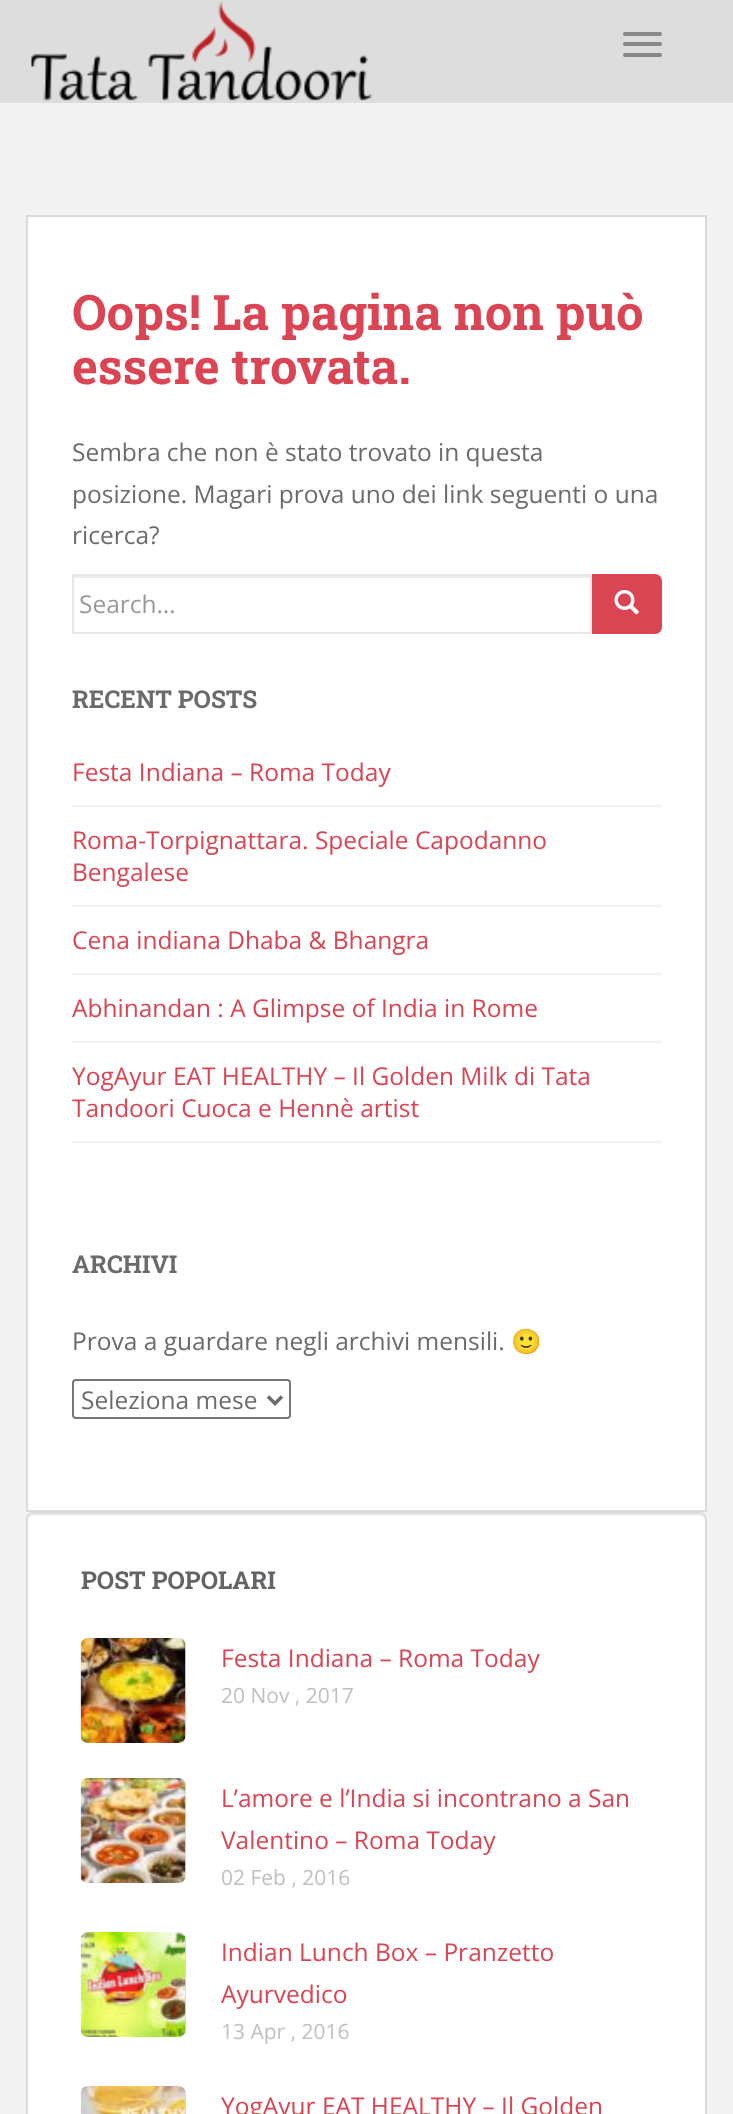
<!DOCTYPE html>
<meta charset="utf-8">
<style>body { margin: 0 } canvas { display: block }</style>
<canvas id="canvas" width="733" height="2114"></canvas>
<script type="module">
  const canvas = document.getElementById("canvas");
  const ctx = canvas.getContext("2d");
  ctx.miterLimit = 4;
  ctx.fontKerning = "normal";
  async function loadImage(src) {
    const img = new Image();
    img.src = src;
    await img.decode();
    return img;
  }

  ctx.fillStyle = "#f2f2f2";
  ctx.fillRect(0, 0, 733, 2114);
  ctx.fillStyle = "#dddddd";
  ctx.fillRect(0, 0, 733, 103);
  ctx.drawImage(await loadImage("img1.png"), 31, 1, 341, 100);
  ctx.fillStyle = "#888888";
  ctx.beginPath();
  ctx.roundRect(623, 32, 39, 4, 2);
  ctx.fill();
  ctx.beginPath();
  ctx.roundRect(623, 42, 39, 4, 2);
  ctx.fill();
  ctx.beginPath();
  ctx.roundRect(623, 53, 39, 4, 2);
  ctx.fill();
  ctx.fillStyle = "#ffffff";
  ctx.beginPath();
  ctx.rect(27, 216, 679, 1295);
  ctx.fill();
  ctx.strokeStyle = "#dadada";
  ctx.lineWidth = 2;
  ctx.stroke();
  ctx.font = "bold 49px Roboto Slab";
  ctx.fillStyle = "#da4453";
  ctx.fillText("Oops! La pagina non può", 72, 330);
  ctx.fillText("essere trovata.", 72, 384);
  ctx.font = "24.5px Open Sans";
  ctx.fillStyle = "#6b6b6b";
  ctx.fillText("Sembra che non è stato trovato in questa", 72, 461);
  ctx.fillText("posizione. Magari prova uno dei link seguenti o una", 72, 503);
  ctx.fillText("ricerca?", 72, 544);
  ctx.fillStyle = "#ececec";
  ctx.fillRect(74, 576, 516, 2);
  ctx.strokeStyle = "#e8e8e8";
  ctx.strokeRect(73, 575, 518, 58);
  ctx.fillStyle = "#999999";
  ctx.fillText("Search…", 79, 613);
  ctx.fillStyle = "#da4453";
  ctx.beginPath();
  ctx.roundRect(593, 575, 68, 58, [0, 6, 6, 0]);
  ctx.fill();
  ctx.strokeStyle = "#da4453";
  ctx.stroke();
  ctx.drawImage(await loadImage("img2.png"), 614, 589, 25, 26);
  ctx.font = "bold 24.5px Roboto Slab";
  ctx.fillStyle = "#6b6b6b";
  ctx.fillText("RECENT POSTS", 72, 708);
  ctx.fillStyle = "#f2f2f2";
  ctx.fillRect(72, 805, 590, 2);
  ctx.font = "24.5px Open Sans";
  ctx.fillStyle = "#da4453";
  ctx.fillText("Festa Indiana – Roma Today", 72, 781);
  ctx.fillStyle = "#f2f2f2";
  ctx.fillRect(72, 905, 590, 2);
  ctx.fillStyle = "#da4453";
  ctx.fillText("Roma-Torpignattara. Speciale Capodanno", 72, 849);
  ctx.fillText("Bengalese", 72, 881);
  ctx.fillStyle = "#f2f2f2";
  ctx.fillRect(72, 973, 590, 2);
  ctx.fillStyle = "#da4453";
  ctx.fillText("Cena indiana Dhaba & Bhangra", 72, 949);
  ctx.fillStyle = "#f2f2f2";
  ctx.fillRect(72, 1041, 590, 2);
  ctx.fillStyle = "#da4453";
  ctx.fillText("Abhinandan : A Glimpse of India in Rome", 72, 1017);
  ctx.fillStyle = "#f2f2f2";
  ctx.fillRect(72, 1141, 590, 2);
  ctx.fillStyle = "#da4453";
  ctx.fillText("YogAyur EAT HEALTHY – Il Golden Milk di Tata", 72, 1085);
  ctx.fillText("Tandoori Cuoca e Hennè artist", 72, 1117);
  ctx.font = "bold 24.5px Roboto Slab";
  ctx.fillStyle = "#6b6b6b";
  ctx.fillText("ARCHIVI", 72, 1273);
  ctx.font = "24.5px Open Sans";
  ctx.fillText("Prova a guardare negli archivi mensili.", 72, 1350);
  ctx.font = "24.5px Noto Color Emoji";
  ctx.fillText("🙂", 511, 1350);
  ctx.beginPath();
  ctx.roundRect(73, 1380, 217, 38, 3);
  ctx.strokeStyle = "#767676";
  ctx.stroke();
  ctx.beginPath();
  ctx.moveTo(268, 1396.5);
  ctx.lineTo(275, 1403.5);
  ctx.lineTo(282, 1396.5);
  ctx.strokeStyle = "#6b6b6b";
  ctx.lineWidth = 3.5;
  ctx.stroke();
  ctx.font = "24.5px Open Sans";
  ctx.fillText("Seleziona mese", 81, 1409);
  ctx.fillStyle = "#ffffff";
  ctx.beginPath();
  ctx.roundRect(26, 1512, 681, 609, 7);
  ctx.fill();
  ctx.fillStyle = "#f2f2f2";
  ctx.beginPath();
  ctx.moveTo(33, 1516);
  ctx.lineTo(700, 1516);
  ctx.bezierCurveTo(703, 1516, 705, 1518, 705, 1521);
  ctx.lineTo(705, 1519);
  ctx.bezierCurveTo(705, 1516, 703, 1514, 700, 1514);
  ctx.lineTo(33, 1514);
  ctx.bezierCurveTo(30, 1514, 28, 1516, 28, 1519);
  ctx.lineTo(28, 1521);
  ctx.bezierCurveTo(28, 1518, 30, 1516, 33, 1516);
  ctx.closePath();
  ctx.fill();
  ctx.beginPath();
  ctx.roundRect(27, 1513, 679, 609, 6);
  ctx.strokeStyle = "#dadada";
  ctx.lineWidth = 2;
  ctx.stroke();
  ctx.font = "bold 24.5px Roboto Slab";
  ctx.fillStyle = "#636467";
  ctx.fillText("POST POPOLARI", 81, 1589);
  ctx.fillStyle = "#dadada";
  ctx.beginPath();
  ctx.roundRect(81, 1638, 105, 105, 7);
  ctx.fill();
  ctx.drawImage(await loadImage("img3.png"), 80, 1638, 106, 105);
  ctx.font = "24.5px Open Sans";
  ctx.fillStyle = "#da4453";
  ctx.fillText("Festa Indiana – Roma Today", 221, 1667);
  ctx.font = "21px Open Sans";
  ctx.fillStyle = "#c1c0c0";
  ctx.fillText("20 Nov , 2017", 221, 1703);
  ctx.fillStyle = "#dadada";
  ctx.beginPath();
  ctx.roundRect(81, 1778, 105, 105, 7);
  ctx.fill();
  ctx.drawImage(await loadImage("img4.png"), 80, 1778, 106, 105);
  ctx.font = "24.5px Open Sans";
  ctx.fillStyle = "#da4453";
  ctx.fillText("L’amore e l’India si incontrano a San", 221, 1807);
  ctx.fillText("Valentino – Roma Today", 221, 1849);
  ctx.font = "21px Open Sans";
  ctx.fillStyle = "#c1c0c0";
  ctx.fillText("02 Feb , 2016", 221, 1885);
  ctx.fillStyle = "#dadada";
  ctx.beginPath();
  ctx.roundRect(81, 1932, 105, 105, 7);
  ctx.fill();
  ctx.drawImage(await loadImage("img5.png"), 80, 1932, 106, 105);
  ctx.font = "24.5px Open Sans";
  ctx.fillStyle = "#da4453";
  ctx.fillText("Indian Lunch Box – Pranzetto", 221, 1961);
  ctx.fillText("Ayurvedico", 221, 2003);
  ctx.font = "21px Open Sans";
  ctx.fillStyle = "#c1c0c0";
  ctx.fillText("13 Apr , 2016", 221, 2039);
  ctx.fillStyle = "#dadada";
  ctx.beginPath();
  ctx.roundRect(81, 2086, 105, 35, 7);
  ctx.fill();
  ctx.drawImage(await loadImage("img6.png"), 80, 2086, 106, 28);
  ctx.font = "24.5px Open Sans";
  ctx.fillStyle = "#da4453";
  ctx.fillText("YogAyur EAT HEALTHY – Il Golden", 221, 2115);
</script>
